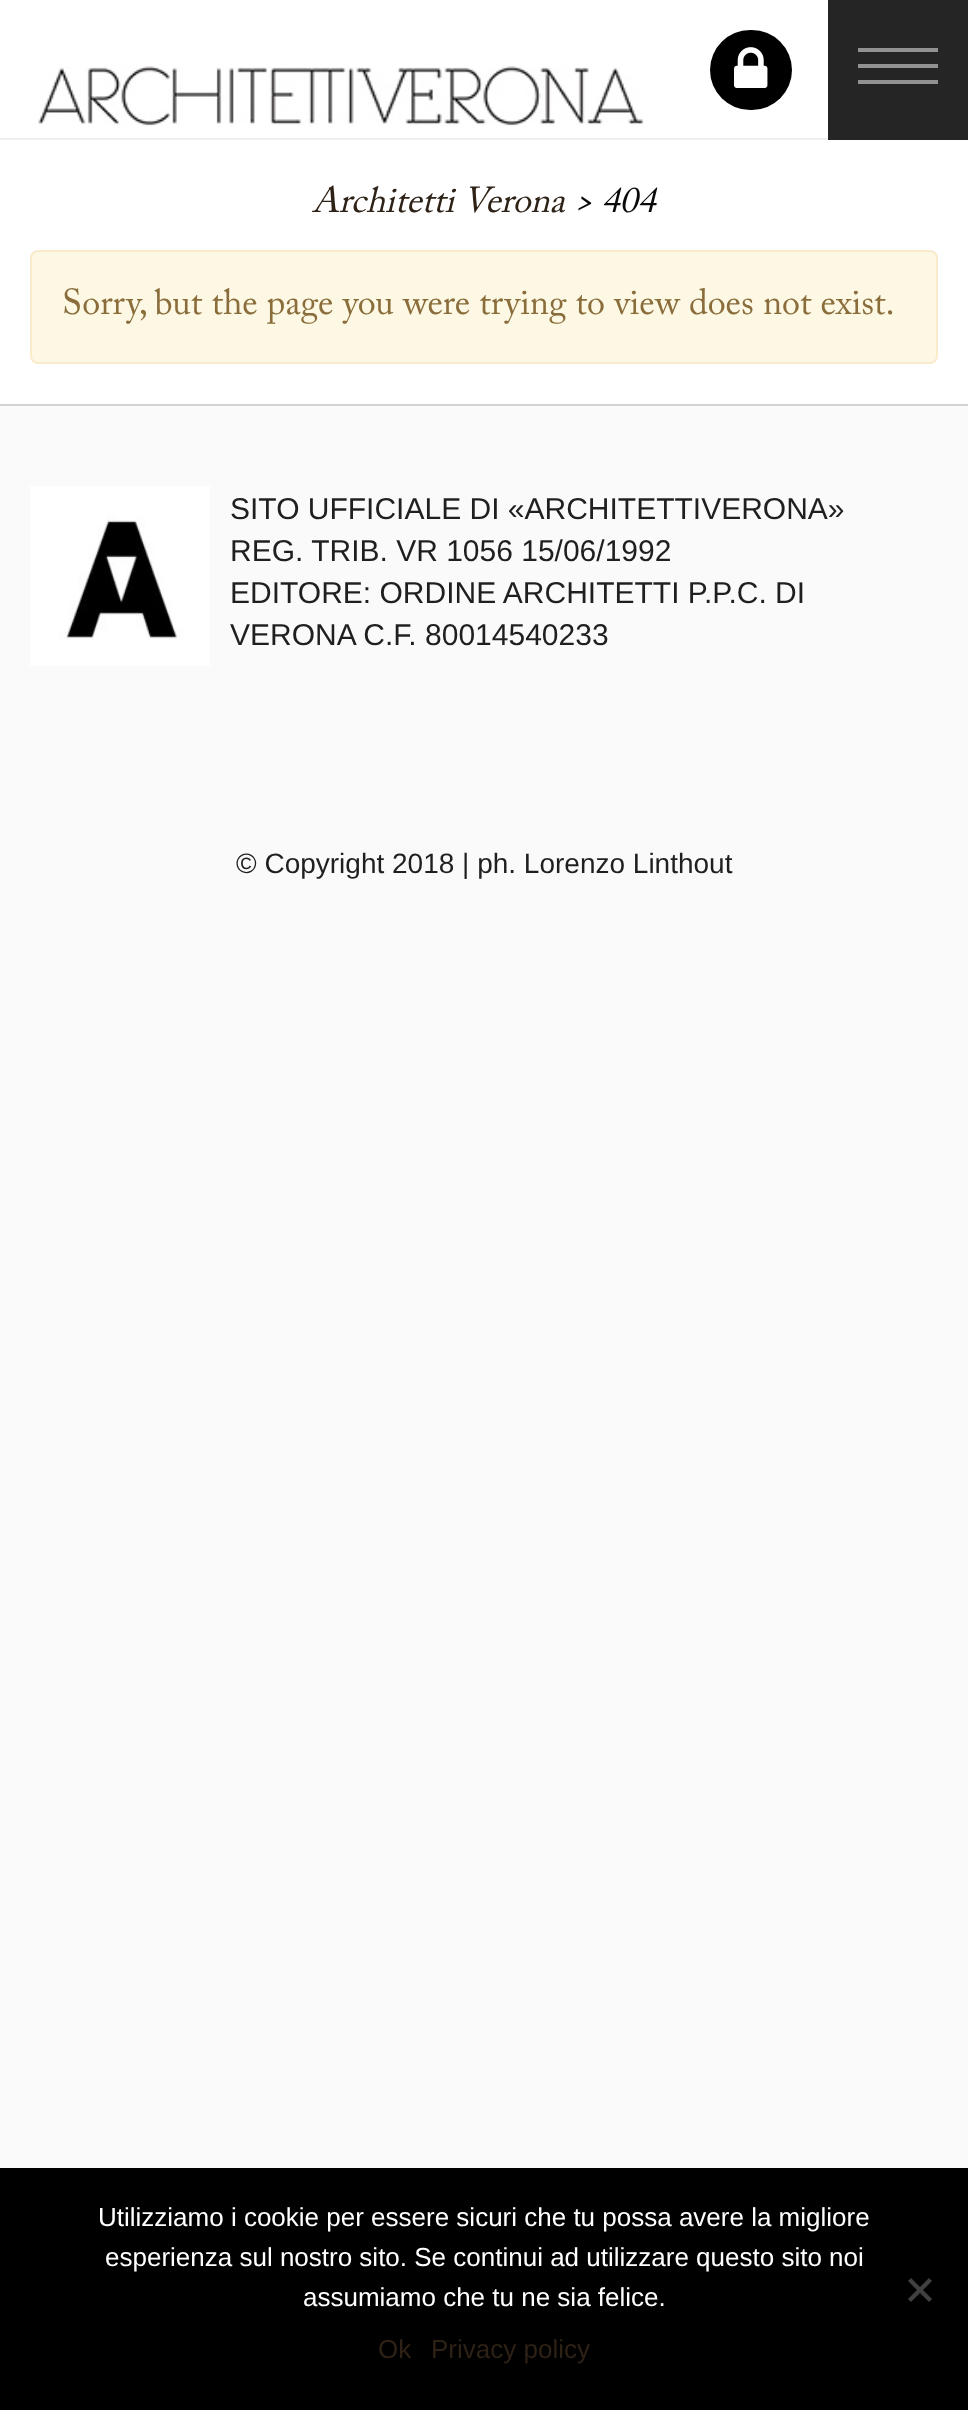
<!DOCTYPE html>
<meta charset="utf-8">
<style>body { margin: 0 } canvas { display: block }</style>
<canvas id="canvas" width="968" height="2410"></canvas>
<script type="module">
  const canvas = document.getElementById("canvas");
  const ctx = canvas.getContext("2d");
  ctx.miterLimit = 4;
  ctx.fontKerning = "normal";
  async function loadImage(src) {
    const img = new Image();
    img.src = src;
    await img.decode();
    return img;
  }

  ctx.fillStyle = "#fafafa";
  ctx.fillRect(0, 0, 968, 2410);
  ctx.fillStyle = "#ffffff";
  ctx.fillRect(0, 0, 968, 404);
  ctx.fillStyle = "#252525";
  ctx.fillRect(828, 0, 140, 140);
  ctx.fillStyle = "#929292";
  ctx.fillRect(858, 48, 80, 4);
  ctx.fillRect(858, 64, 80, 4);
  ctx.fillRect(858, 80, 80, 4);
  ctx.fillStyle = "#eeeeee";
  ctx.fillRect(0, 138, 828, 2);
  ctx.drawImage(await loadImage("img1.png"), 38, 66, 606, 60);
  ctx.fillStyle = "#000000";
  ctx.beginPath();
  ctx.roundRect(710, 30, 82, 80, 40);
  ctx.fill();
  ctx.drawImage(await loadImage("img2.png"), 734, 47, 34, 41);
  ctx.font = "italic 36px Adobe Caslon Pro";
  ctx.fillStyle = "#2e2115";
  ctx.fillText("Architetti Verona", 312, 212);
  ctx.fillStyle = "#0a0a0a";
  ctx.fillText("> 404", 574, 212);
  ctx.fillStyle = "#fcf8e3";
  ctx.beginPath();
  ctx.roundRect(31, 251, 906, 112, 7);
  ctx.fill();
  ctx.strokeStyle = "#faebcc";
  ctx.lineWidth = 2;
  ctx.stroke();
  ctx.font = "36px Adobe Caslon Pro";
  ctx.fillStyle = "#8a6d3b";
  ctx.fillText("Sorry, but the page you were trying to view does not exist.", 62, 314);
  ctx.fillStyle = "#d2d2d1";
  ctx.fillRect(0, 404, 968, 2);
  ctx.drawImage(await loadImage("img3.png"), 30, 486, 180, 180);
  ctx.font = "30px Liberation Sans";
  ctx.fillStyle = "#1f1f1f";
  ctx.fillText("SITO UFFICIALE DI «ARCHITETTIVERONA»", 230, 519);
  ctx.fillText("REG. TRIB. VR 1056 15/06/1992", 230, 561);
  ctx.fillText("EDITORE: ORDINE ARCHITETTI P.P.C. DI", 230, 603);
  ctx.fillText("VERONA C.F. 80014540233", 230, 645);
  ctx.font = "28px Liberation Sans";
  ctx.fillText("© Copyright 2018 | ph. Lorenzo Linthout", 236, 873);
  ctx.fillStyle = "#000000";
  ctx.fillRect(0, 2168, 968, 242);
  ctx.font = "26px Liberation Sans";
  ctx.fillStyle = "#ffffff";
  ctx.fillText("Utilizziamo i cookie per essere sicuri che tu possa avere la migliore", 98, 2226);
  ctx.fillText("esperienza sul nostro sito. Se continui ad utilizzare questo sito noi", 105, 2266);
  ctx.fillText("assumiamo che tu ne sia felice.", 303, 2306);
  ctx.fillStyle = "#404040";
  ctx.beginPath();
  ctx.moveTo(929, 2278);
  ctx.lineTo(932, 2281);
  ctx.lineTo(911, 2302);
  ctx.lineTo(908, 2299);
  ctx.closePath();
  ctx.fill();
  ctx.beginPath();
  ctx.moveTo(908, 2281);
  ctx.lineTo(911, 2278);
  ctx.lineTo(932, 2299);
  ctx.lineTo(929, 2302);
  ctx.closePath();
  ctx.fill();
  ctx.fillStyle = "#2e2115";
  ctx.fillText("Ok", 378, 2358);
  ctx.fillText("Privacy policy", 431, 2358);
</script>
